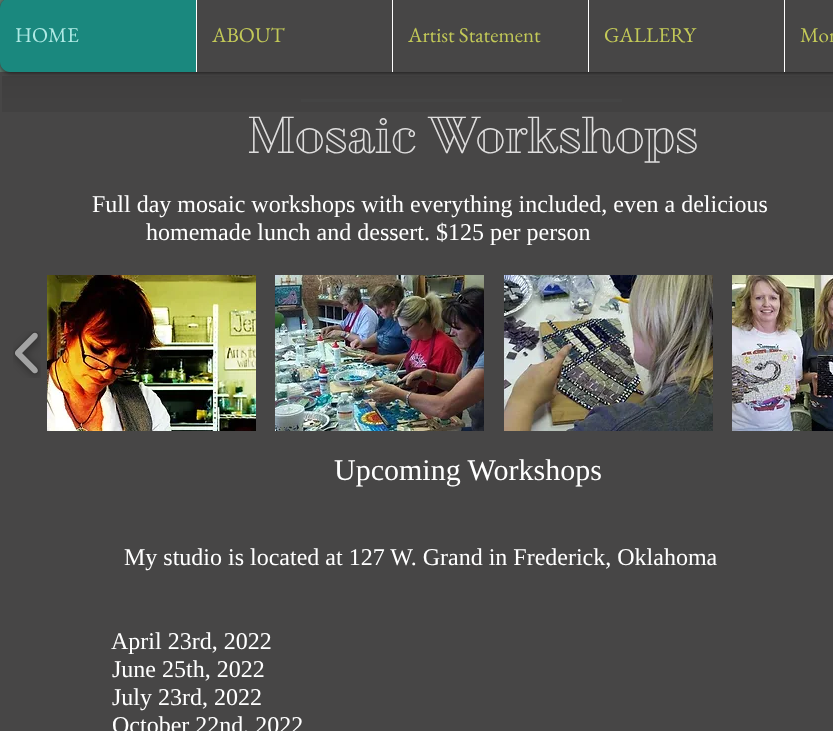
<!DOCTYPE html>
<meta charset="utf-8">
<style>body { margin: 0 } canvas { display: block }</style>
<canvas id="canvas" width="833" height="731"></canvas>
<script type="module">
  const canvas = document.getElementById("canvas");
  const ctx = canvas.getContext("2d");
  ctx.miterLimit = 4;
  ctx.fontKerning = "normal";
  async function loadImage(src) {
    const img = new Image();
    img.src = src;
    await img.decode();
    return img;
  }

  ctx.fillStyle = "#5d7a6e";
  ctx.fillRect(0, 0, 833, 731);
  ctx.fillStyle = "rgba(43, 42, 42, 0.6)";
  ctx.filter = "blur(2px)";
  ctx.beginPath();
  ctx.rect(0, 73, 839, 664);
  ctx.fill();
  ctx.filter = "none";
  ctx.fillStyle = "#474646";
  ctx.fillRect(2, 74, 831, 657);
  ctx.drawImage(await loadImage("img1.png"), 2, 76, 831, 36);
  ctx.strokeStyle = "#474646";
  ctx.lineWidth = 2;
  ctx.strokeRect(1, 73, 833, 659);
  ctx.fillStyle = "rgba(0, 0, 0, 0.6)";
  ctx.filter = "blur(2px)";
  ctx.beginPath();
  ctx.roundRect(0, -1, 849, 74, 10);
  ctx.fill();
  ctx.filter = "none";
  ctx.fillStyle = "#474646";
  ctx.beginPath();
  ctx.roundRect(0, -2, 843, 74, 10);
  ctx.fill();
  ctx.fillStyle = "#1a887e";
  ctx.beginPath();
  ctx.moveTo(10, -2);
  ctx.lineTo(196, -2);
  ctx.lineTo(196, 72);
  ctx.lineTo(10, 72);
  ctx.bezierCurveTo(4.5, 72, 0, 67.5, 0, 62);
  ctx.lineTo(0, 8);
  ctx.bezierCurveTo(0, 2.5, 4.5, -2, 10, -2);
  ctx.closePath();
  ctx.fill();
  ctx.font = "21px EB Garamond";
  ctx.fillStyle = "#aee9e4";
  ctx.fillText("HOME", 15, 42);
  ctx.fillStyle = "#ffffff";
  ctx.fillRect(196, 0, 1, 72);
  ctx.fillStyle = "#c3c958";
  ctx.fillText("ABOUT", 212, 42);
  ctx.fillStyle = "#ffffff";
  ctx.fillRect(392, 0, 1, 72);
  ctx.fillStyle = "#c3c958";
  ctx.fillText("Artist Statement", 408, 42);
  ctx.fillStyle = "#ffffff";
  ctx.fillRect(588, 0, 1, 72);
  ctx.fillStyle = "#c3c958";
  ctx.fillText("GALLERY", 604, 42);
  ctx.fillStyle = "#ffffff";
  ctx.fillRect(784, 0, 1, 72);
  ctx.fillStyle = "#c3c958";
  ctx.fillText("Mor", 800, 42);
  ctx.fillStyle = "rgba(71, 70, 70, 0.52)";
  ctx.fillRect(301, 99, 321, 3);
  ctx.font = "bold 48px 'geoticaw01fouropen'";
  ctx.fillStyle = "#dedddd";
  ctx.fillText("Mosaic Workshops", 246, 153);
  ctx.font = "24px Liberation Serif";
  ctx.fillStyle = "#ffffff";
  ctx.fillText("Full day mosaic workshops with everything included, even a delicious", 92, 212);
  ctx.fillText("homemade lunch and dessert. $125 per person", 146, 240);
  ctx.drawImage(await loadImage("img2.png"), 13, 331, 28, 47);
  ctx.drawImage(await loadImage("img3.png"), 47, 275, 209, 156);
  ctx.drawImage(await loadImage("img4.png"), 275, 275, 209, 156);
  ctx.drawImage(await loadImage("img5.png"), 504, 275, 209, 156);
  ctx.drawImage(await loadImage("img6.png"), 732, 275, 101, 156);
  ctx.font = "30px Liberation Serif";
  ctx.fillText("Upcoming Workshops", 334, 480);
  ctx.font = "24px Liberation Serif";
  ctx.fillText("My studio is located at 127 W. Grand in Frederick, Oklahoma", 124, 565);
  ctx.fillText("April 23rd, 2022", 111, 649);
  ctx.fillText("June 25th, 2022", 112, 677);
  ctx.fillText("July 23rd, 2022", 112, 705);
  ctx.fillText("October 22nd, 2022", 112, 733);
</script>
